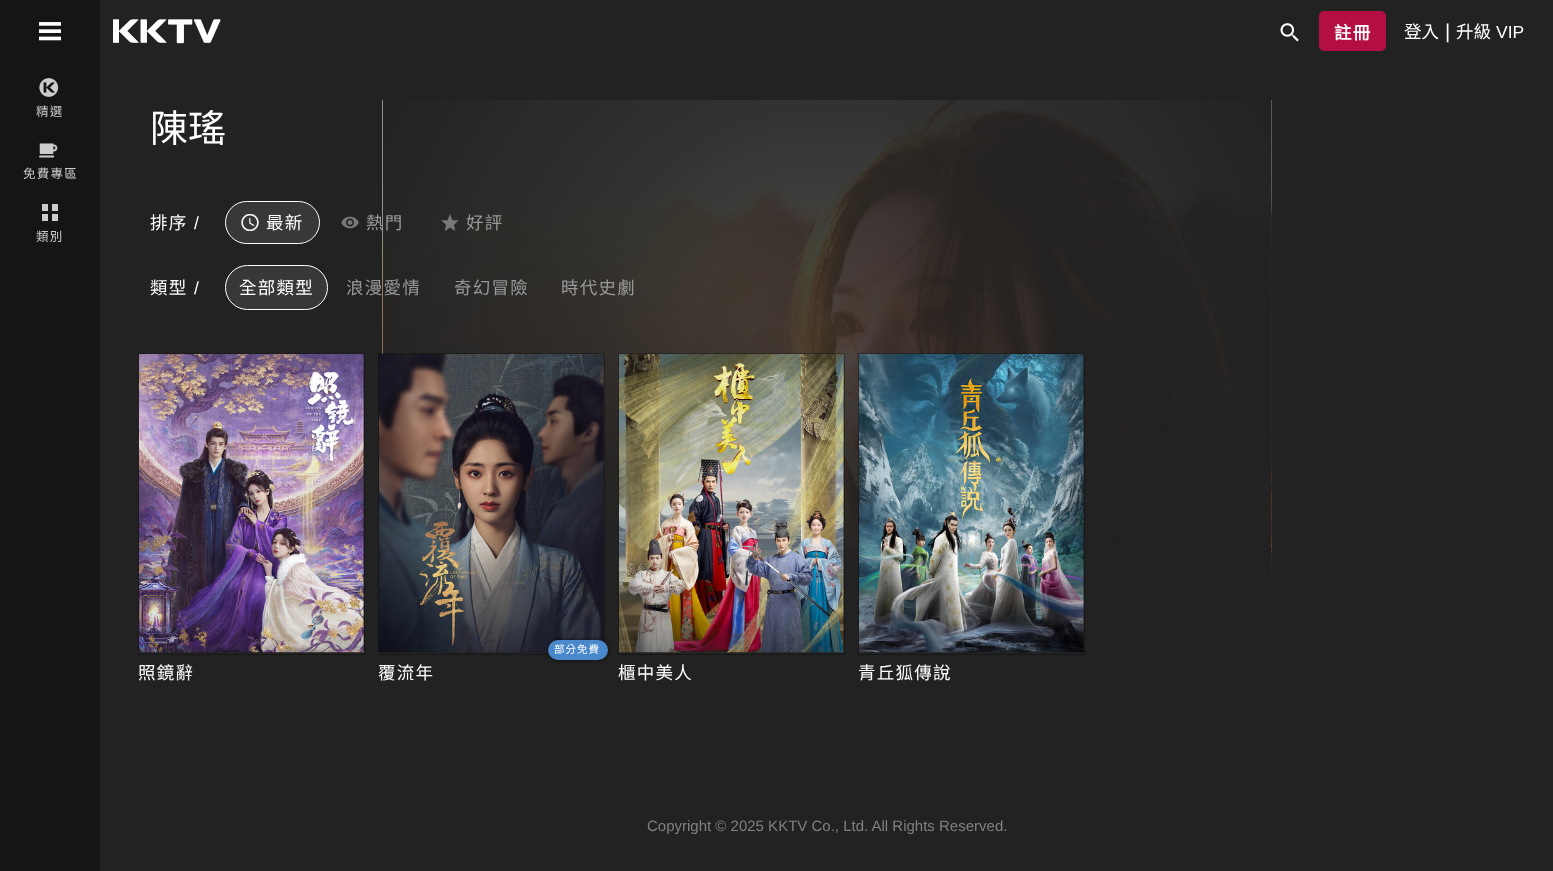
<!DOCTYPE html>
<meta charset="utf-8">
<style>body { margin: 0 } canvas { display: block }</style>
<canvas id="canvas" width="1553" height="871"></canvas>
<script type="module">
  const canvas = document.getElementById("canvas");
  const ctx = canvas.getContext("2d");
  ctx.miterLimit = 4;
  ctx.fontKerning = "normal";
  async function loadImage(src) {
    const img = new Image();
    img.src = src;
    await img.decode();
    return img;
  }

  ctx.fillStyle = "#222222";
  ctx.fillRect(0, 0, 1553, 871);
  ctx.fillStyle = "#151515";
  ctx.fillRect(0, 0, 100, 871);
  ctx.drawImage(await loadImage("img1.png"), 39, 22, 22, 19);
  ctx.drawImage(await loadImage("img2.png"), 113, 19, 108, 25);
  ctx.drawImage(await loadImage("img3.png"), 1280, 23, 19, 19);
  ctx.fillStyle = "#b40f42";
  ctx.beginPath();
  ctx.roundRect(1319, 11, 67, 40, 5);
  ctx.fill();
  ctx.letterSpacing = "1.25px";
  ctx.font = "bold 17.5px Noto Sans CJK TC";
  ctx.fillStyle = "#ffffff";
  ctx.fillText("註冊", 1334, 39);
  ctx.letterSpacing = "0px";
  ctx.font = "17.5px Noto Sans CJK TC";
  ctx.fillText("登入", 1404, 38);
  ctx.font = "20px Liberation Sans";
  ctx.fillText("|", 1445, 38);
  ctx.font = "17.5px Noto Sans CJK TC";
  ctx.fillText("升級", 1456, 38);
  ctx.font = "17.5px Liberation Sans";
  ctx.fillText("VIP", 1496, 38);
  ctx.drawImage(await loadImage("img4.png"), 39, 78, 20, 19);
  ctx.letterSpacing = "1.25px";
  ctx.font = "12.5px Noto Sans CJK TC";
  ctx.fillStyle = "#cccccc";
  ctx.fillText("精選", 36, 116);
  ctx.drawImage(await loadImage("img5.png"), 39, 143, 19, 15);
  ctx.fillText("免費專區", 23, 178);
  ctx.drawImage(await loadImage("img6.png"), 42, 204, 16, 17);
  ctx.fillText("類別", 36, 241);
  ctx.letterSpacing = "0px";
  ctx.font = "38px Noto Sans CJK TC";
  ctx.fillStyle = "#ffffff";
  ctx.fillText("陳瑤", 150, 142);
  ctx.drawImage(await loadImage("img7.png"), 382, 100, 890, 500);
  ctx.letterSpacing = "1.25px";
  ctx.font = "17.5px Noto Sans CJK TC";
  ctx.fillText("排序", 150, 229);
  ctx.font = "17.5px Liberation Sans";
  ctx.fillText("/", 194, 229);
  ctx.fillStyle = "#383838";
  ctx.beginPath();
  ctx.roundRect(225.5, 201.5, 94, 42, 21);
  ctx.fill();
  ctx.strokeStyle = "#ffffff";
  ctx.stroke();
  ctx.drawImage(await loadImage("img8.png"), 241, 214, 18, 17);
  ctx.font = "17.5px Noto Sans CJK TC";
  ctx.fillStyle = "#ffffff";
  ctx.fillText("最新", 266, 229);
  ctx.drawImage(await loadImage("img9.png"), 341, 216, 18, 13);
  ctx.fillStyle = "#999999";
  ctx.fillText("熱門", 366, 229);
  ctx.drawImage(await loadImage("img10.png"), 441, 214, 18, 17);
  ctx.fillText("好評", 466, 229);
  ctx.fillStyle = "#ffffff";
  ctx.fillText("類型", 150, 294);
  ctx.font = "17.5px Liberation Sans";
  ctx.fillText("/", 194, 294);
  ctx.fillStyle = "#383838";
  ctx.beginPath();
  ctx.roundRect(225.5, 265.5, 102, 44, 22);
  ctx.fill();
  ctx.stroke();
  ctx.font = "17.5px Noto Sans CJK TC";
  ctx.fillStyle = "#ffffff";
  ctx.fillText("全部類型", 239, 294);
  ctx.fillStyle = "#999999";
  ctx.fillText("浪漫愛情", 346, 294);
  ctx.fillText("奇幻冒險", 454, 294);
  ctx.fillText("時代史劇", 561, 294);
  ctx.strokeStyle = "#181818";
  ctx.strokeRect(138.5, 353.5, 226, 301);
  ctx.drawImage(await loadImage("img11.png"), 138, 353, 226, 300);
  ctx.fillStyle = "#ffffff";
  ctx.fillText("照鏡辭", 138, 679);
  ctx.strokeStyle = "rgba(0, 0, 0, 0.3)";
  ctx.strokeRect(378.5, 353.5, 226, 301);
  ctx.drawImage(await loadImage("img12.png"), 378, 353, 226, 300);
  ctx.fillStyle = "rgba(0, 0, 0, 0.7)";
  ctx.filter = "blur(2px)";
  ctx.beginPath();
  ctx.roundRect(548, 640, 60, 20, 10);
  ctx.fill();
  ctx.filter = "none";
  ctx.fillStyle = "#4a88cc";
  ctx.beginPath();
  ctx.roundRect(548, 640, 60, 20, 10);
  ctx.fill();
  ctx.letterSpacing = "1px";
  ctx.font = "10.5px Noto Sans CJK TC";
  ctx.fillStyle = "#ffffff";
  ctx.fillText("部分免費", 554, 653);
  ctx.letterSpacing = "1.25px";
  ctx.font = "17.5px Noto Sans CJK TC";
  ctx.fillText("覆流年", 378, 679);
  ctx.strokeRect(618.5, 353.5, 226, 301);
  ctx.drawImage(await loadImage("img13.png"), 618, 353, 226, 300);
  ctx.fillText("櫃中美人", 618, 679);
  ctx.strokeRect(858.5, 353.5, 226, 301);
  ctx.drawImage(await loadImage("img14.png"), 858, 353, 226, 300);
  ctx.fillText("青丘狐傳說", 858, 679);
  ctx.letterSpacing = "0px";
  ctx.font = "15px Liberation Sans";
  ctx.fillStyle = "#808080";
  ctx.fillText("Copyright © 2025 KKTV Co., Ltd. All Rights Reserved.", 647, 831);
</script>
